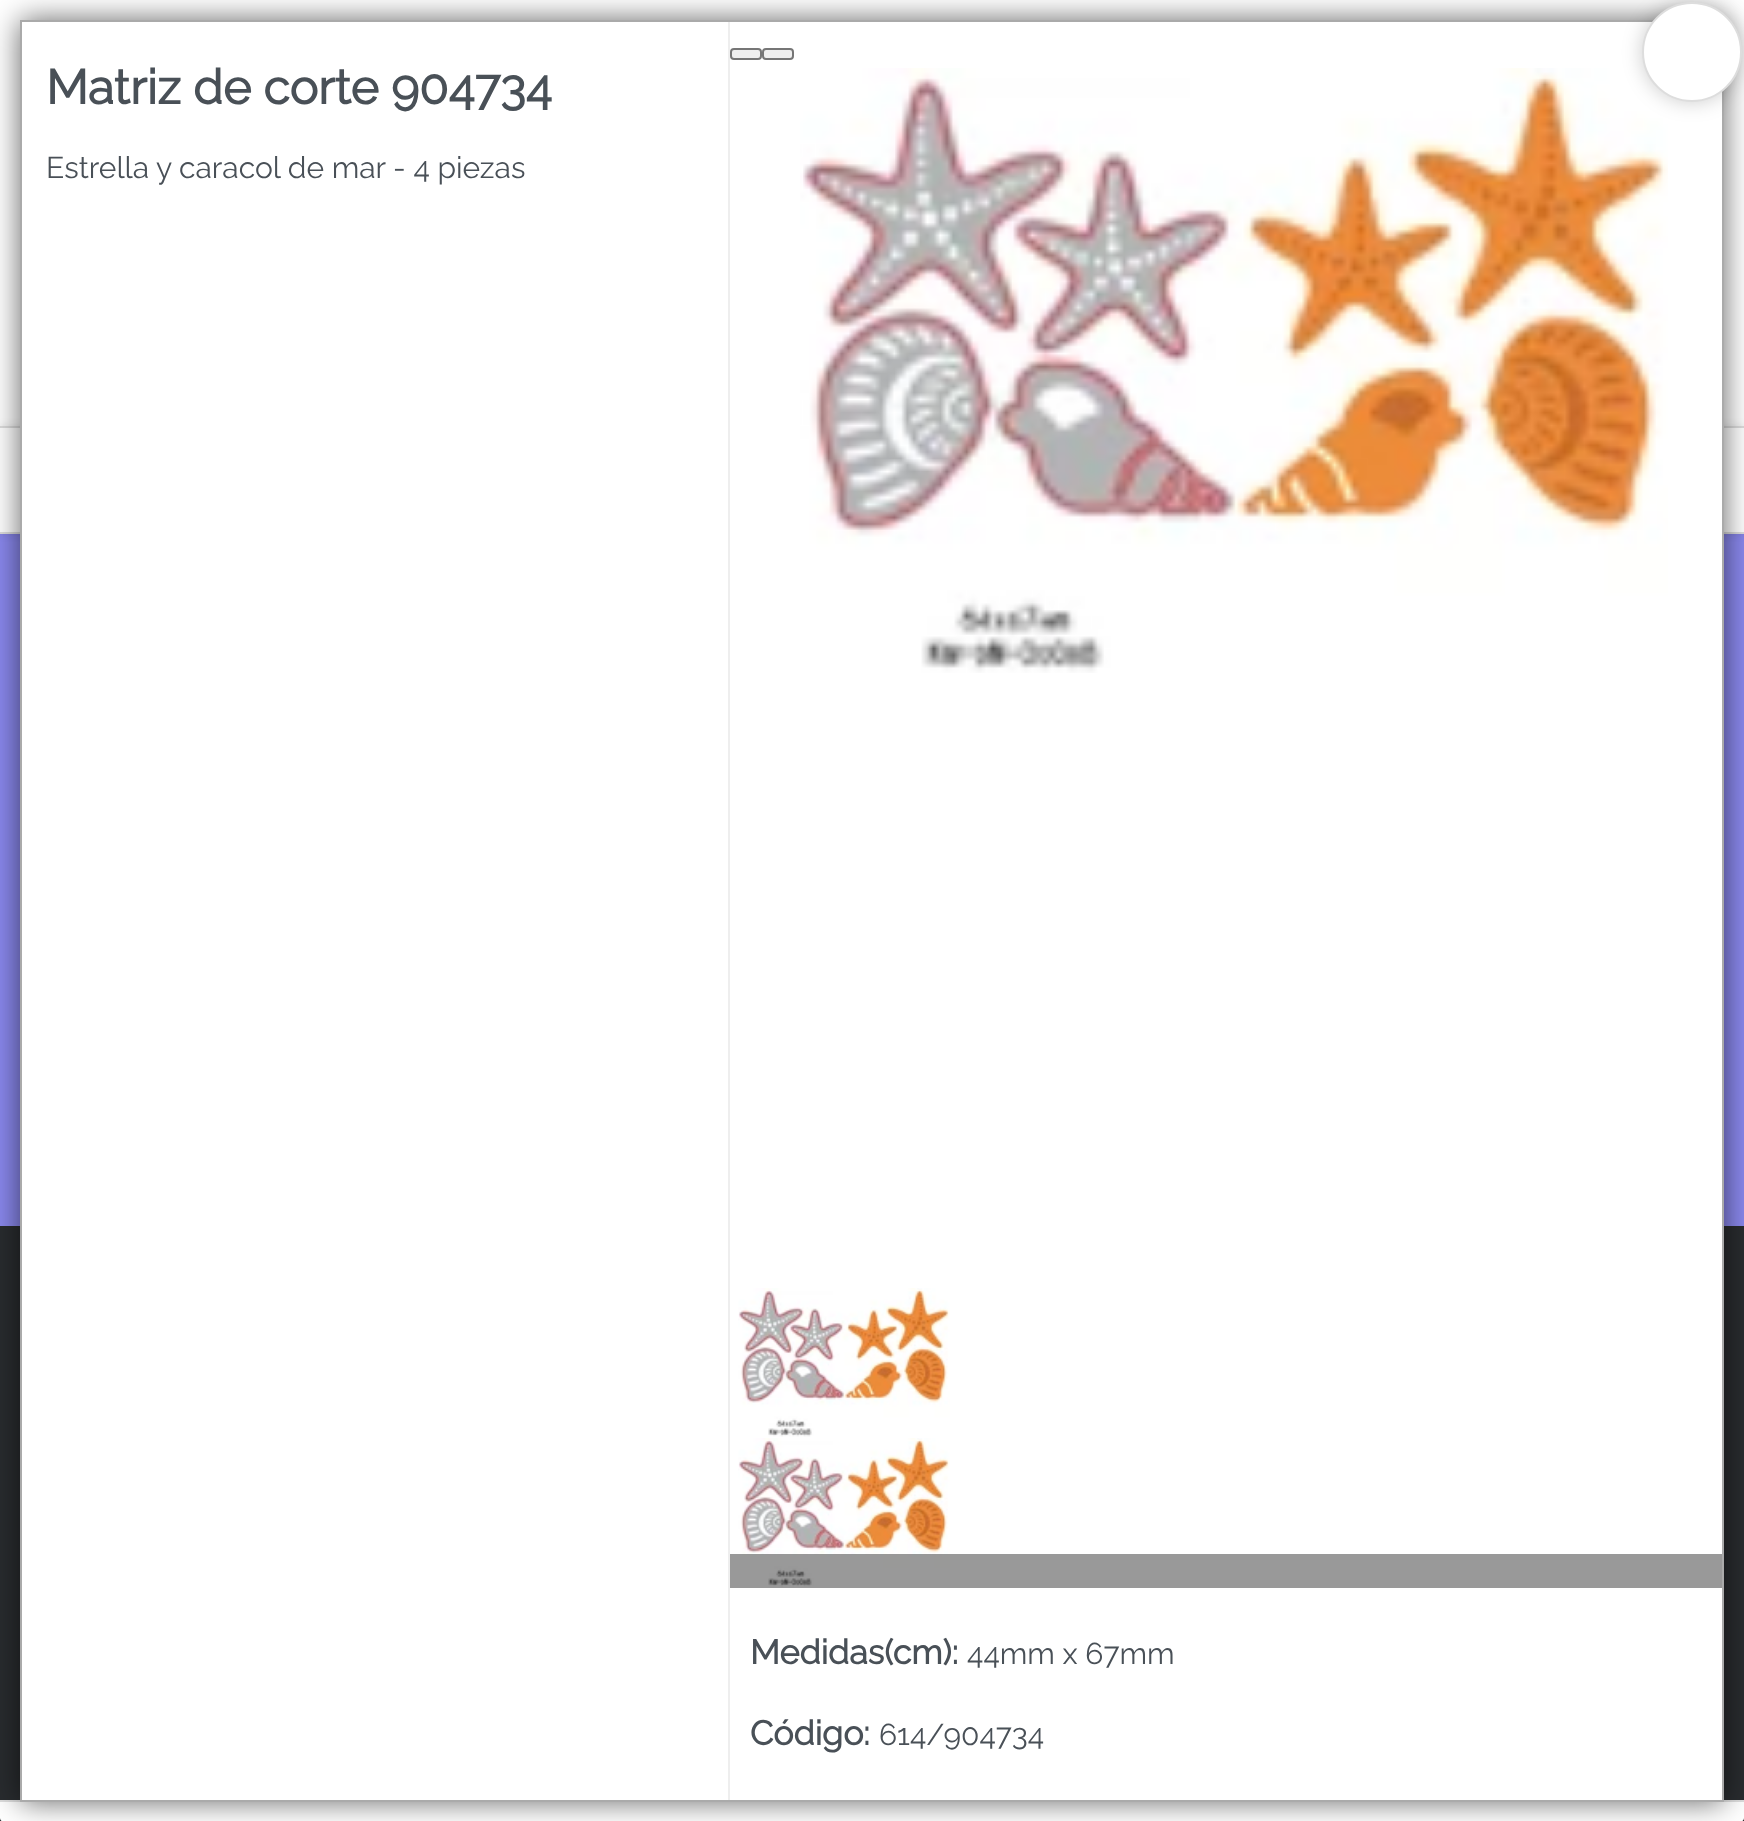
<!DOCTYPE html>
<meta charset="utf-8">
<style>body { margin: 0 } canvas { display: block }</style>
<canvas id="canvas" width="1744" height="1821"></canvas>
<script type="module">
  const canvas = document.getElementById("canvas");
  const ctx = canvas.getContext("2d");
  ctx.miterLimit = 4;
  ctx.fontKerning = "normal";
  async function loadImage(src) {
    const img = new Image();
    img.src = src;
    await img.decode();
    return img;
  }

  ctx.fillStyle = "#8a88ed";
  ctx.fillRect(0, 0, 1744, 1821);
  ctx.fillStyle = "#ffffff";
  ctx.fillRect(0, 0, 1744, 426);
  ctx.fillStyle = "rgba(0, 0, 0, 0.1)";
  ctx.filter = "blur(4px)";
  ctx.beginPath();
  ctx.rect(0, 426, 1744, 108);
  ctx.fill();
  ctx.filter = "none";
  ctx.fillStyle = "#ffffff";
  ctx.fillRect(0, 428, 1744, 104);
  ctx.fillStyle = "#dddddd";
  ctx.fillRect(0, 426, 1744, 2);
  ctx.fillRect(0, 532, 1744, 2);
  ctx.fillStyle = "#292c2f";
  ctx.fillRect(0, 1226, 1744, 595);
  ctx.fillStyle = "#ffffff";
  ctx.beginPath();
  ctx.moveTo(0, 1800);
  ctx.lineTo(1744, 1800);
  ctx.lineTo(1744, 1818);
  ctx.bezierCurveTo(1744, 1820, 1742, 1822, 1740, 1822);
  ctx.lineTo(4, 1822);
  ctx.bezierCurveTo(2, 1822, 0, 1820, 0, 1818);
  ctx.closePath();
  ctx.fill();
  ctx.fillStyle = "#dddddd";
  ctx.fillRect(0, 1800, 1744, 2);
  ctx.fillStyle = "rgba(0, 0, 0, 0.6)";
  ctx.filter = "blur(15px)";
  ctx.beginPath();
  ctx.rect(20, 20, 1704, 1782);
  ctx.fill();
  ctx.filter = "none";
  ctx.fillStyle = "#ffffff";
  ctx.beginPath();
  ctx.rect(21, 21, 1702, 1780);
  ctx.fill();
  ctx.strokeStyle = "#aaaaaa";
  ctx.lineWidth = 2;
  ctx.stroke();
  ctx.fillStyle = "#eeeeee";
  ctx.fillRect(728, 22, 2, 1778);
  ctx.font = "bold 48px Raleway";
  ctx.fillStyle = "#495057";
  ctx.fillText("Matriz de corte 904734", 46, 104);
  ctx.font = "100 30px Raleway";
  ctx.fillText("Estrella y caracol de mar - 4 piezas", 46, 178);
  ctx.fillStyle = "#efefef";
  ctx.beginPath();
  ctx.roundRect(731, 49, 30, 10, 3);
  ctx.fill();
  ctx.strokeStyle = "#767676";
  ctx.stroke();
  ctx.beginPath();
  ctx.roundRect(763, 49, 30, 10, 3);
  ctx.fill();
  ctx.stroke();
  ctx.drawImage(await loadImage("img1.png"), 800, 68, 868, 605);
  ctx.drawImage(await loadImage("img2.png"), 738, 1288, 212, 149);
  ctx.drawImage(await loadImage("img2.png"), 738, 1438, 212, 149);
  ctx.fillStyle = "rgba(0, 0, 0, 0.4)";
  ctx.fillRect(730, 1554, 992, 34);
  ctx.font = "bold 34px Raleway";
  ctx.fillStyle = "#495057";
  ctx.fillText("Medidas(cm):", 750, 1664);
  ctx.font = "100 30px Raleway";
  ctx.fillText("44mm x 67mm", 967, 1664);
  ctx.font = "bold 34px Raleway";
  ctx.fillText("Código:", 750, 1745);
  ctx.font = "100 30px Raleway";
  ctx.fillText("614/904734", 879, 1745);
  ctx.fillStyle = "rgba(0, 0, 0, 0.2)";
  ctx.filter = "blur(10px)";
  ctx.beginPath();
  ctx.roundRect(1642, 2, 100, 100, 50);
  ctx.fill();
  ctx.filter = "none";
  ctx.fillStyle = "#ffffff";
  ctx.beginPath();
  ctx.arc(1692, 52, 49, 0, Math.PI * 2);
  ctx.fill();
  ctx.strokeStyle = "#dddddd";
  ctx.stroke();
</script>
